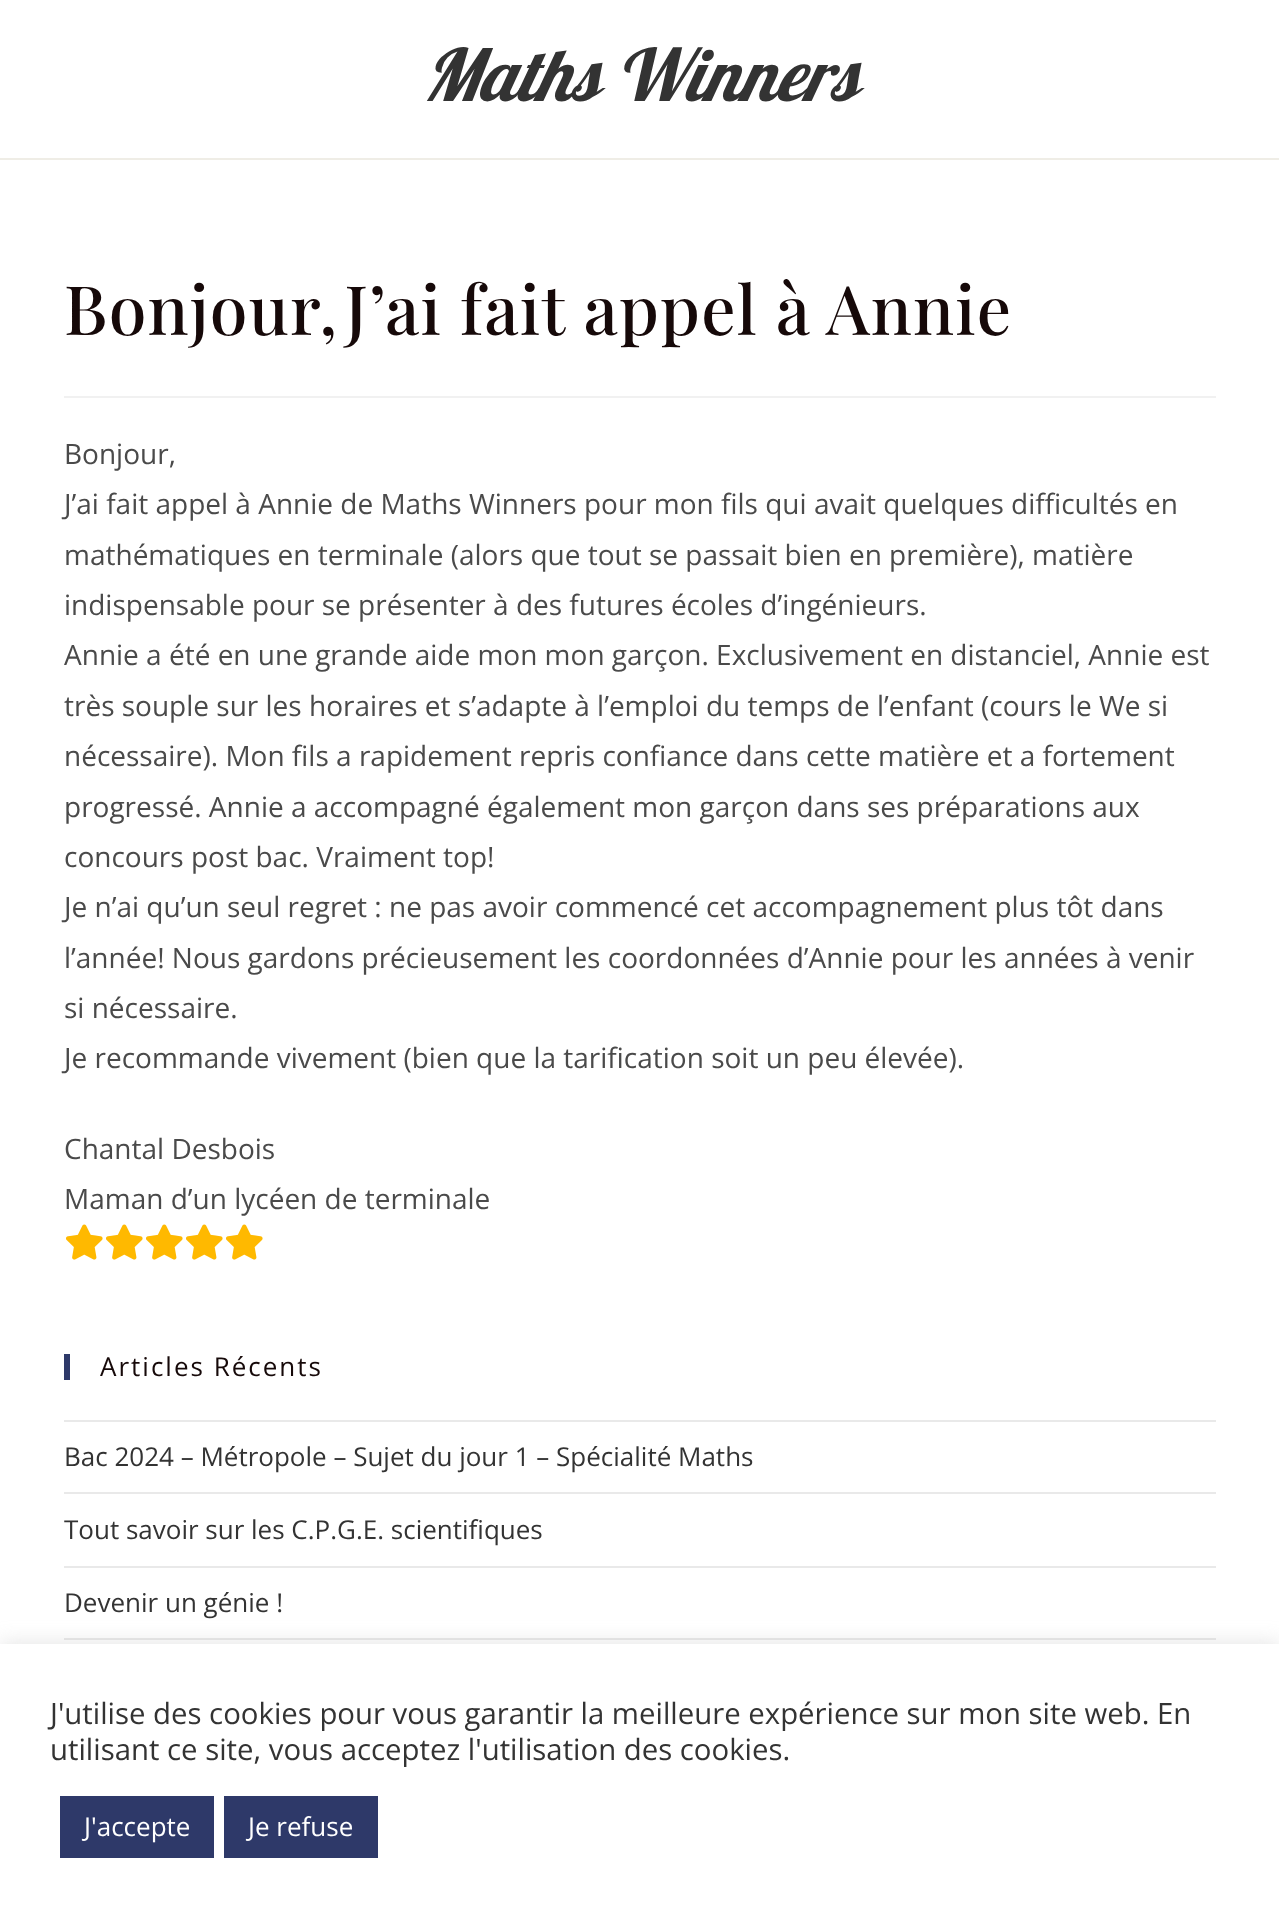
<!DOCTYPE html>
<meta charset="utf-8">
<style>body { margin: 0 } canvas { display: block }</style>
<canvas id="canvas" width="1279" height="1918"></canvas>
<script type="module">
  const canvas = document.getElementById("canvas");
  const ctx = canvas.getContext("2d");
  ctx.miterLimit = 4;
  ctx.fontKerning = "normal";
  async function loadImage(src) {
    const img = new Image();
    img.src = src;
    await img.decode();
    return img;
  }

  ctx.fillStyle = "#ffffff";
  ctx.fillRect(0, 0, 1279, 1918);
  ctx.fillStyle = "#efede6";
  ctx.fillRect(0, 158, 1279, 2);
  ctx.font = "italic 72px Pattaya";
  ctx.fillStyle = "#333333";
  ctx.fillText("Maths Winners", 422, 101);
  ctx.fillStyle = "#f1f1f1";
  ctx.fillRect(64, 396, 1152, 2);
  ctx.letterSpacing = "1.2px";
  ctx.font = "500 68px Playfair Display";
  ctx.fillStyle = "#160909";
  ctx.fillText("Bonjour,J’ai fait appel à Annie", 64, 335);
  ctx.letterSpacing = "0px";
  ctx.font = "28px Open Sans";
  ctx.fillStyle = "#4a4a4a";
  ctx.fillText("Bonjour,", 64, 464);
  ctx.fillText("J’ai fait appel à Annie de Maths Winners pour mon fils qui avait quelques difficultés en", 64, 514);
  ctx.fillText("mathématiques en terminale (alors que tout se passait bien en première), matière", 64, 565);
  ctx.fillText("indispensable pour se présenter à des futures écoles d’ingénieurs.", 64, 615);
  ctx.fillText("Annie a été en une grande aide mon mon garçon. Exclusivement en distanciel, Annie est", 64, 665);
  ctx.fillText("très souple sur les horaires et s’adapte à l’emploi du temps de l’enfant (cours le We si", 64, 716);
  ctx.fillText("nécessaire). Mon fils a rapidement repris confiance dans cette matière et a fortement", 64, 766);
  ctx.fillText("progressé. Annie a accompagné également mon garçon dans ses préparations aux", 64, 817);
  ctx.fillText("concours post bac. Vraiment top!", 64, 867);
  ctx.fillText("Je n’ai qu’un seul regret : ne pas avoir commencé cet accompagnement plus tôt dans", 64, 917);
  ctx.fillText("l’année! Nous gardons précieusement les coordonnées d’Annie pour les années à venir", 64, 968);
  ctx.fillText("si nécessaire.", 64, 1018);
  ctx.fillText("Je recommande vivement (bien que la tarification soit un peu élevée).", 64, 1068);
  ctx.fillText("Chantal Desbois", 64, 1159);
  ctx.fillText("Maman d’un lycéen de terminale", 64, 1209);
  ctx.drawImage(await loadImage("img1.png"), 66, 1224, 37, 36);
  ctx.drawImage(await loadImage("img1.png"), 106, 1224, 37, 36);
  ctx.drawImage(await loadImage("img1.png"), 146, 1224, 37, 36);
  ctx.drawImage(await loadImage("img1.png"), 186, 1224, 37, 36);
  ctx.drawImage(await loadImage("img1.png"), 226, 1224, 37, 36);
  ctx.fillStyle = "#2e3969";
  ctx.fillRect(64, 1354, 6, 26);
  ctx.letterSpacing = "2px";
  ctx.font = "26px Open Sans";
  ctx.fillStyle = "#160909";
  ctx.fillText("Articles Récents", 100, 1376);
  ctx.fillStyle = "#e9e9e9";
  ctx.fillRect(64, 1420, 1152, 2);
  ctx.fillRect(64, 1492, 1152, 2);
  ctx.letterSpacing = "0px";
  ctx.fillStyle = "#333333";
  ctx.fillText("Bac 2024 – Métropole – Sujet du jour 1 – Spécialité Maths", 64, 1466);
  ctx.fillStyle = "#e9e9e9";
  ctx.fillRect(64, 1566, 1152, 2);
  ctx.fillStyle = "#333333";
  ctx.fillText("Tout savoir sur les C.P.G.E. scientifiques", 64, 1539);
  ctx.fillStyle = "#e9e9e9";
  ctx.fillRect(64, 1638, 1152, 2);
  ctx.fillStyle = "#333333";
  ctx.fillText("Devenir un génie !", 64, 1612);
  ctx.fillStyle = "rgba(172, 171, 171, 0.3)";
  ctx.filter = "blur(10px)";
  ctx.beginPath();
  ctx.rect(0, 1642, 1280, 274);
  ctx.fill();
  ctx.filter = "none";
  ctx.fillStyle = "#ffffff";
  ctx.fillRect(0, 1644, 1279, 274);
  ctx.font = "29.35px Open Sans";
  ctx.fillStyle = "#333333";
  ctx.fillText("J'utilise des cookies pour vous garantir la meilleure expérience sur mon site web. En", 50, 1724);
  ctx.fillText("utilisant ce site, vous acceptez l'utilisation des cookies.", 50, 1760);
  ctx.fillStyle = "#2e3969";
  ctx.fillRect(60, 1796, 154, 62);
  ctx.font = "26px Open Sans";
  ctx.fillStyle = "#ffffff";
  ctx.fillText("J'accepte", 84, 1836);
  ctx.fillStyle = "#2e3969";
  ctx.fillRect(224, 1796, 154, 62);
  ctx.fillStyle = "#ffffff";
  ctx.fillText("Je refuse", 248, 1836);
</script>
